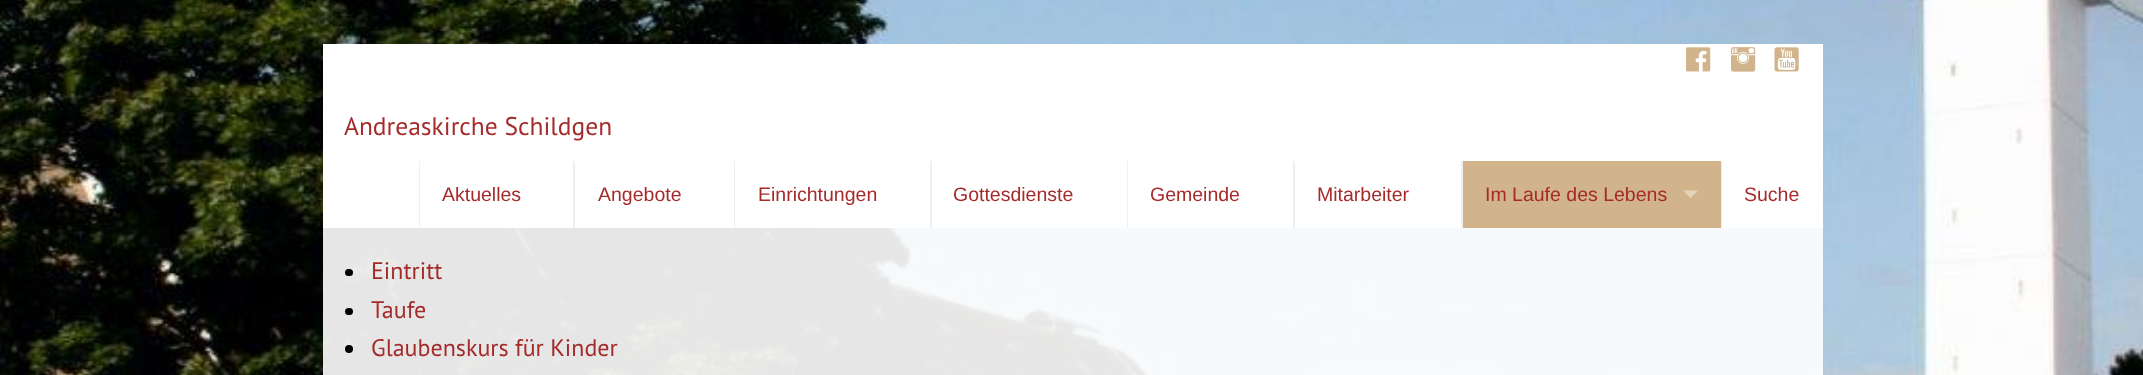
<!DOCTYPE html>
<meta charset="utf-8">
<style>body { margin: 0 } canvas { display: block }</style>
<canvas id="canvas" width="2143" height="375"></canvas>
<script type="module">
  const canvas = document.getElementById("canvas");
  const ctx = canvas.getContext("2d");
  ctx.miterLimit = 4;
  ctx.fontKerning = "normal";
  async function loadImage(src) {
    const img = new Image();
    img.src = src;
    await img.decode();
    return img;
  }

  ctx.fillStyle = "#ffffff";
  ctx.fillRect(0, 0, 2143, 375);
  ctx.drawImage(await loadImage("img1.png"), 0, 0, 2143, 375);
  ctx.fillRect(323, 44, 1500, 117);
  ctx.drawImage(await loadImage("img2.png"), 1686, 47, 25, 25);
  ctx.drawImage(await loadImage("img3.png"), 1731, 47, 25, 25);
  ctx.drawImage(await loadImage("img4.png"), 1774, 47, 25, 25);
  ctx.fillRect(323, 161, 1138, 67);
  ctx.font = "25.5px PT Sans";
  ctx.fillStyle = "#a52a2a";
  ctx.fillText("Andreaskirche Schildgen", 344, 135);
  ctx.fillStyle = "#efefef";
  ctx.fillRect(419, 161, 1, 67);
  ctx.font = "19.5px Liberation Sans";
  ctx.fillStyle = "#a52a2a";
  ctx.fillText("Aktuelles", 442, 201);
  ctx.fillStyle = "#efefef";
  ctx.fillRect(573, 161, 2, 67);
  ctx.fillStyle = "#a52a2a";
  ctx.fillText("Angebote", 598, 201);
  ctx.fillStyle = "#efefef";
  ctx.fillRect(734, 161, 1, 67);
  ctx.fillStyle = "#a52a2a";
  ctx.fillText("Einrichtungen", 758, 201);
  ctx.fillStyle = "#efefef";
  ctx.fillRect(930, 161, 2, 67);
  ctx.fillStyle = "#a52a2a";
  ctx.fillText("Gottesdienste", 953, 201);
  ctx.fillStyle = "#efefef";
  ctx.fillRect(1127, 161, 1, 67);
  ctx.fillStyle = "#a52a2a";
  ctx.fillText("Gemeinde", 1150, 201);
  ctx.fillStyle = "#efefef";
  ctx.fillRect(1293, 161, 2, 67);
  ctx.fillStyle = "#a52a2a";
  ctx.fillText("Mitarbeiter", 1317, 201);
  ctx.fillStyle = "#efefef";
  ctx.fillRect(1461, 161, 2, 67);
  ctx.fillStyle = "#d2b48c";
  ctx.fillRect(1463, 161, 258, 67);
  ctx.fillStyle = "#a52a2a";
  ctx.fillText("Im Laufe des Lebens", 1485, 201);
  ctx.fillStyle = "#e4d2ba";
  ctx.beginPath();
  ctx.moveTo(1683, 190.5);
  ctx.lineTo(1698, 190.5);
  ctx.lineTo(1690.5, 198);
  ctx.closePath();
  ctx.fill();
  ctx.fillStyle = "#efefef";
  ctx.fillRect(1721, 161, 1, 67);
  ctx.fillStyle = "#ffffff";
  ctx.fillRect(1722, 161, 101, 67);
  ctx.fillStyle = "#a52a2a";
  ctx.fillText("Suche", 1744, 201);
  ctx.fillStyle = "rgba(255, 255, 255, 0.9)";
  ctx.fillRect(323, 228, 1500, 147);
  ctx.fillStyle = "#000000";
  ctx.beginPath();
  ctx.roundRect(345, 269, 8, 7, 3.5);
  ctx.fill();
  ctx.font = "24px PT Sans";
  ctx.fillStyle = "#a52a2a";
  ctx.fillText("Eintritt", 371, 279);
  ctx.fillStyle = "#000000";
  ctx.beginPath();
  ctx.roundRect(345, 308, 8, 7, 3.5);
  ctx.fill();
  ctx.fillStyle = "#a52a2a";
  ctx.fillText("Taufe", 371, 318);
  ctx.fillStyle = "#000000";
  ctx.beginPath();
  ctx.arc(349, 349, 4, 0, Math.PI * 2);
  ctx.fill();
  ctx.fillStyle = "#a52a2a";
  ctx.fillText("Glaubenskurs für Kinder", 371, 356);
</script>
